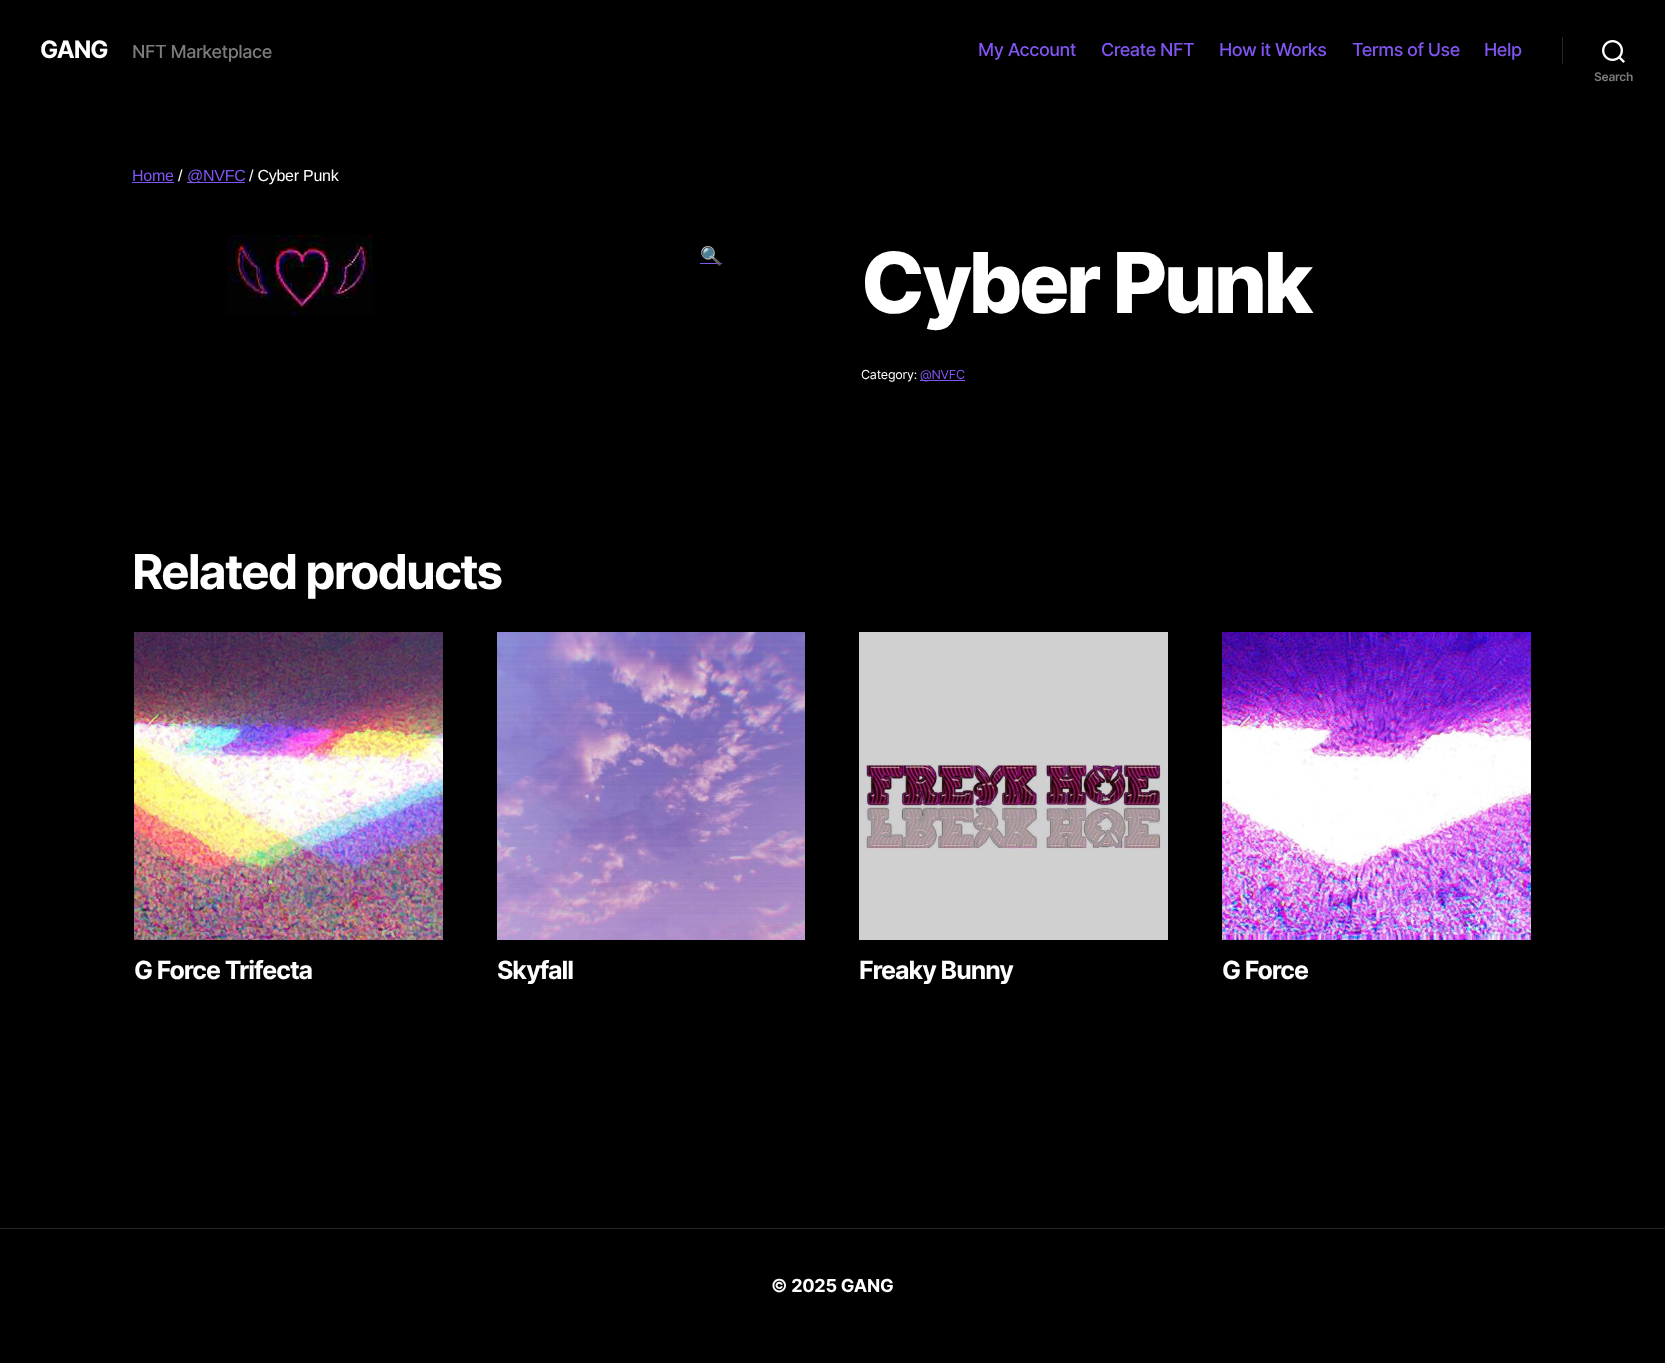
<!DOCTYPE html>
<meta charset="utf-8">
<style>body { margin: 0 } canvas { display: block }</style>
<canvas id="canvas" width="1665" height="1363"></canvas>
<script type="module">
  const canvas = document.getElementById("canvas");
  const ctx = canvas.getContext("2d");
  ctx.miterLimit = 4;
  ctx.fontKerning = "normal";
  async function loadImage(src) {
    const img = new Image();
    img.src = src;
    await img.decode();
    return img;
  }

  ctx.fillStyle = "#000000";
  ctx.fillRect(0, 0, 1665, 1363);
  ctx.letterSpacing = "-1px";
  ctx.font = "bold 24px Inter";
  ctx.fillStyle = "#ffffff";
  ctx.fillText("GANG", 40, 58);
  ctx.letterSpacing = "-0.5px";
  ctx.font = "500 18px Inter";
  ctx.fillStyle = "#7c7c7c";
  ctx.fillText("NFT Marketplace", 132, 58);
  ctx.fillStyle = "#8155f1";
  ctx.fillText("My Account", 978, 56);
  ctx.fillText("Create NFT", 1101, 56);
  ctx.fillText("How it Works", 1219, 56);
  ctx.fillText("Terms of Use", 1352, 56);
  ctx.fillText("Help", 1484, 56);
  ctx.fillStyle = "#262626";
  ctx.fillRect(1562, 37, 1, 27);
  ctx.drawImage(await loadImage("img1.png"), 1602, 40, 23, 23);
  ctx.letterSpacing = "-0.25px";
  ctx.font = "600 12px Inter";
  ctx.fillStyle = "#7c7c7c";
  ctx.fillText("Search", 1594, 81);
  ctx.font = "16px Liberation Sans";
  ctx.fillStyle = "#8155f1";
  ctx.fillText("Home", 132, 181);
  ctx.fillRect(132, 182, 42, 1);
  ctx.fillStyle = "#ffffff";
  ctx.fillText("/", 178, 181);
  ctx.fillStyle = "#8155f1";
  ctx.fillRect(187, 182, 58, 1);
  ctx.fillText("@NVFC", 187, 181);
  ctx.fillStyle = "#ffffff";
  ctx.fillText("/ Cyber Punk", 249, 181);
  ctx.drawImage(await loadImage("img2.png"), 227, 235, 146, 81);
  ctx.fillStyle = "#8155f1";
  ctx.fillRect(700, 263, 22, 1);
  ctx.font = "18px Noto Color Emoji";
  ctx.fillText("🔍", 700, 262);
  ctx.letterSpacing = "-3.5px";
  ctx.font = "800 84px Inter";
  ctx.fillStyle = "#ffffff";
  ctx.fillText("Cyber Punk", 861, 313);
  ctx.letterSpacing = "-0.25px";
  ctx.font = "12.5px Inter";
  ctx.fillText("Category:", 861, 379);
  ctx.fillStyle = "#8155f1";
  ctx.fillRect(920, 380, 45, 1);
  ctx.fillText("@NVFC", 920, 379);
  ctx.letterSpacing = "-2px";
  ctx.font = "bold 48px Inter";
  ctx.fillStyle = "#ffffff";
  ctx.fillText("Related products", 132, 589);
  ctx.drawImage(await loadImage("img3.png"), 134, 632, 309, 308);
  ctx.letterSpacing = "-1px";
  ctx.font = "bold 25px Inter";
  ctx.fillText("G Force Trifecta", 134, 979);
  ctx.drawImage(await loadImage("img4.png"), 497, 632, 308, 308);
  ctx.fillText("Skyfall", 497, 979);
  ctx.drawImage(await loadImage("img5.png"), 859, 632, 309, 308);
  ctx.fillText("Freaky Bunny", 859, 979);
  ctx.drawImage(await loadImage("img6.png"), 1222, 632, 309, 308);
  ctx.fillText("G Force", 1222, 979);
  ctx.fillStyle = "#262626";
  ctx.fillRect(0, 1228, 1665, 1);
  ctx.letterSpacing = "-0.25px";
  ctx.font = "bold 18px Inter";
  ctx.fillStyle = "#ffffff";
  ctx.fillText("© 2025 GANG", 771, 1292);
</script>
